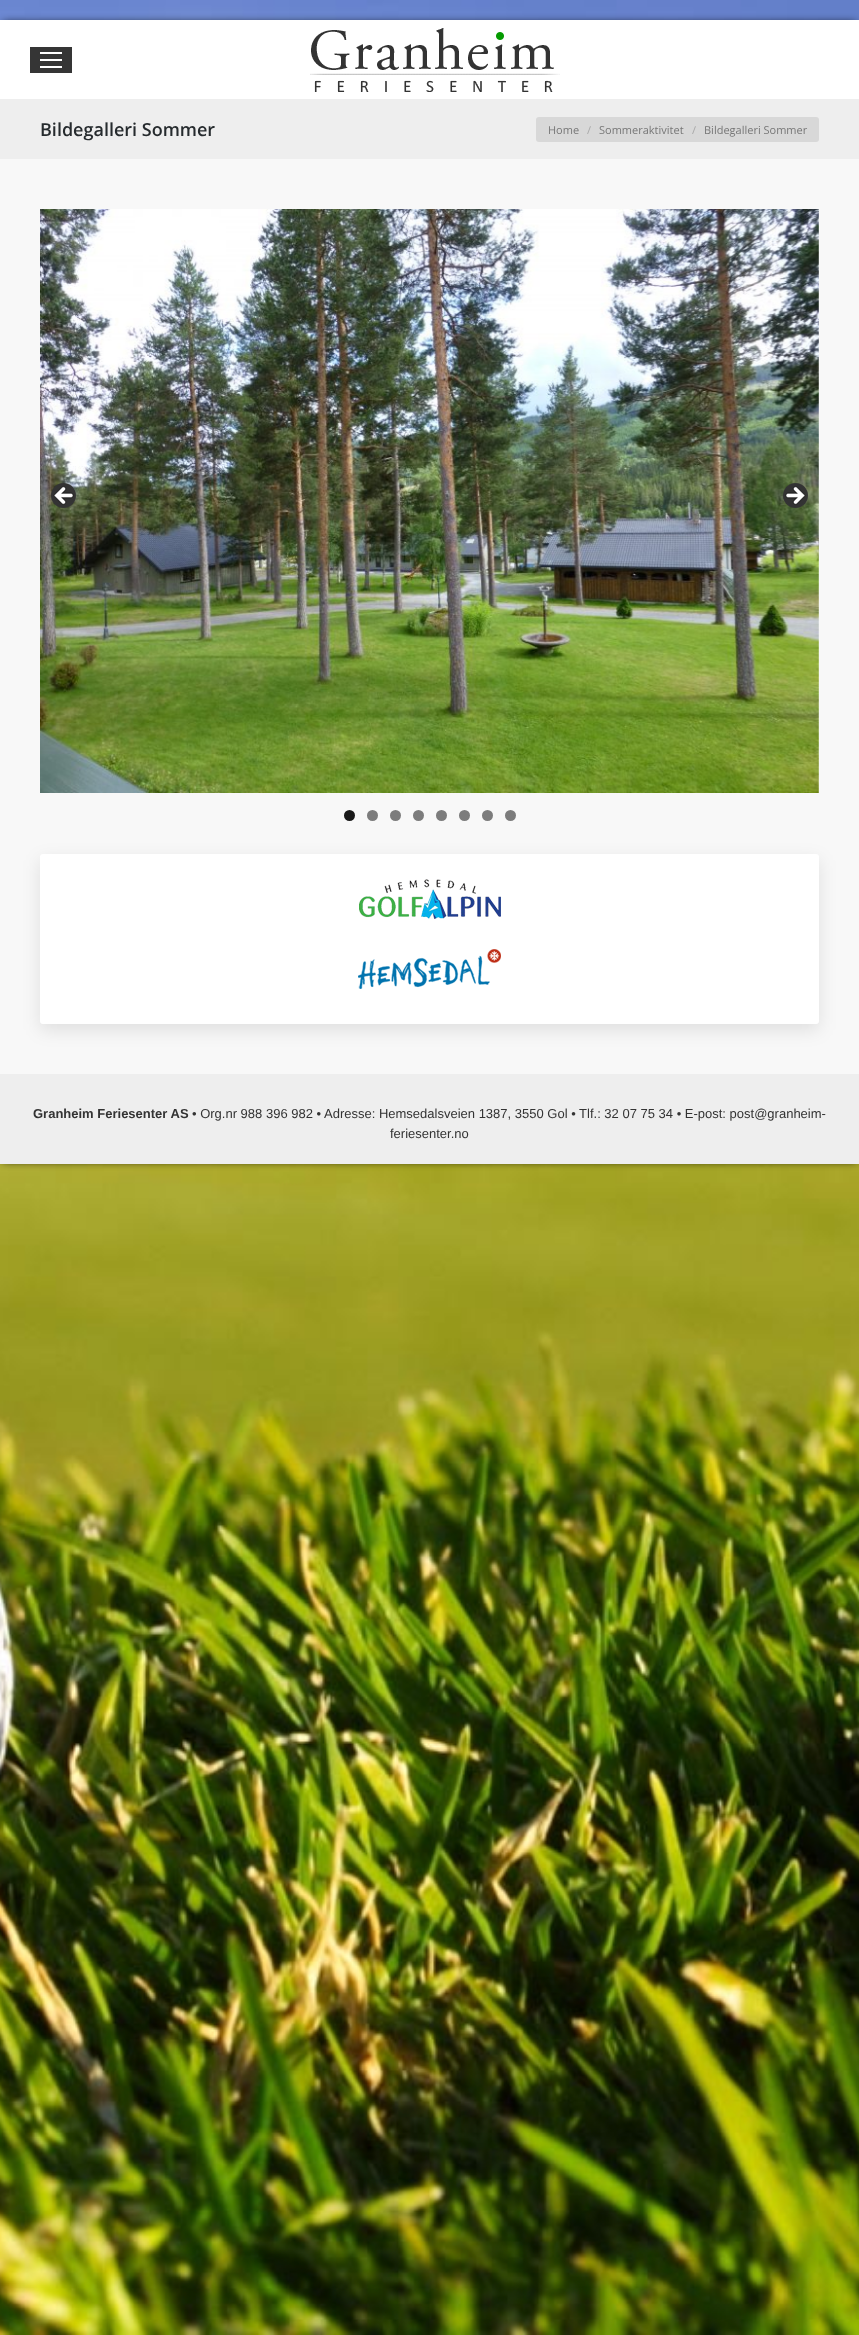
<!DOCTYPE html>
<meta charset="utf-8">
<style>body { margin: 0 } canvas { display: block }</style>
<canvas id="canvas" width="859" height="2335"></canvas>
<script type="module">
  const canvas = document.getElementById("canvas");
  const ctx = canvas.getContext("2d");
  ctx.miterLimit = 4;
  ctx.fontKerning = "normal";
  async function loadImage(src) {
    const img = new Image();
    img.src = src;
    await img.decode();
    return img;
  }

  ctx.fillStyle = "#ffffff";
  ctx.fillRect(0, 0, 859, 2335);
  ctx.drawImage(await loadImage("img1.png"), 0, 0, 859, 2335);
  ctx.fillStyle = "#000000";
  ctx.filter = "blur(4px)";
  ctx.beginPath();
  ctx.rect(3, 23, 853, 1138);
  ctx.fill();
  ctx.filter = "none";
  ctx.fillStyle = "#f8f8f8";
  ctx.fillRect(0, 159, 859, 915);
  ctx.fillStyle = "#ffffff";
  ctx.fillRect(0, 20, 859, 79);
  ctx.fillStyle = "#353535";
  ctx.fillRect(30, 47, 42, 26);
  ctx.fillStyle = "#ffffff";
  ctx.fillRect(40, 52, 22, 2);
  ctx.fillRect(40, 59, 22, 2);
  ctx.fillRect(40, 66, 22, 2);
  ctx.drawImage(await loadImage("img2.png"), 310, 28, 250, 64);
  ctx.fillStyle = "#eeeeee";
  ctx.fillRect(0, 99, 859, 60);
  ctx.font = "600 18px Open Sans";
  ctx.fillStyle = "#262b2e";
  ctx.fillText("Bildegalleri Sommer", 40, 136);
  ctx.fillStyle = "#d8d8d8";
  ctx.beginPath();
  ctx.roundRect(536, 117, 283, 25, 3);
  ctx.fill();
  ctx.font = "11px Open Sans";
  ctx.fillStyle = "#777777";
  ctx.fillText("Home", 548, 134);
  ctx.fillStyle = "#a8a8a8";
  ctx.fillText("/", 587, 134);
  ctx.fillStyle = "#777777";
  ctx.fillText("Sommeraktivitet", 599, 134);
  ctx.fillStyle = "#a8a8a8";
  ctx.fillText("/", 692, 134);
  ctx.fillStyle = "#777777";
  ctx.fillText("Bildegalleri Sommer", 704, 134);
  ctx.drawImage(await loadImage("img3.png"), 40, 209, 779, 584);
  ctx.drawImage(await loadImage("img4.png"), 51, 483, 25, 25);
  ctx.drawImage(await loadImage("img5.png"), 783, 483, 25, 25);
  ctx.fillStyle = "#191919";
  ctx.beginPath();
  ctx.arc(349.5, 815.5, 5.5, 0, Math.PI * 2);
  ctx.fill();
  ctx.fillStyle = "#7c7c7c";
  ctx.beginPath();
  ctx.arc(372.5, 815.5, 5.5, 0, Math.PI * 2);
  ctx.fill();
  ctx.beginPath();
  ctx.arc(395.5, 815.5, 5.5, 0, Math.PI * 2);
  ctx.fill();
  ctx.beginPath();
  ctx.arc(418.5, 815.5, 5.5, 0, Math.PI * 2);
  ctx.fill();
  ctx.beginPath();
  ctx.arc(441.5, 815.5, 5.5, 0, Math.PI * 2);
  ctx.fill();
  ctx.beginPath();
  ctx.arc(464.5, 815.5, 5.5, 0, Math.PI * 2);
  ctx.fill();
  ctx.beginPath();
  ctx.arc(487.5, 815.5, 5.5, 0, Math.PI * 2);
  ctx.fill();
  ctx.beginPath();
  ctx.arc(510.5, 815.5, 5.5, 0, Math.PI * 2);
  ctx.fill();
  ctx.fillStyle = "rgba(0, 0, 0, 0.1)";
  ctx.filter = "blur(9px)";
  ctx.beginPath();
  ctx.roundRect(40, 860, 779, 170, 3);
  ctx.fill();
  ctx.filter = "none";
  ctx.fillStyle = "#ffffff";
  ctx.beginPath();
  ctx.roundRect(40, 854, 779, 170, 3);
  ctx.fill();
  ctx.drawImage(await loadImage("img6.png"), 359, 879, 142, 40);
  ctx.drawImage(await loadImage("img7.png"), 358, 949, 143, 40);
  ctx.fillStyle = "#eeeeee";
  ctx.fillRect(0, 1074, 859, 90);
  ctx.font = "bold 13px Liberation Sans";
  ctx.fillStyle = "#333333";
  ctx.fillText("Granheim Feriesenter AS", 33, 1118);
  ctx.font = "13px Liberation Sans";
  ctx.fillText("• Org.nr 988 396 982 •", 192, 1118);
  ctx.fillText("Adresse: Hemsedalsveien 1387, 3550 Gol • Tlf.: 32 07 75 34 • E-post: post@granheim-", 324, 1118);
  ctx.fillText("feriesenter.no", 390, 1138);
</script>
